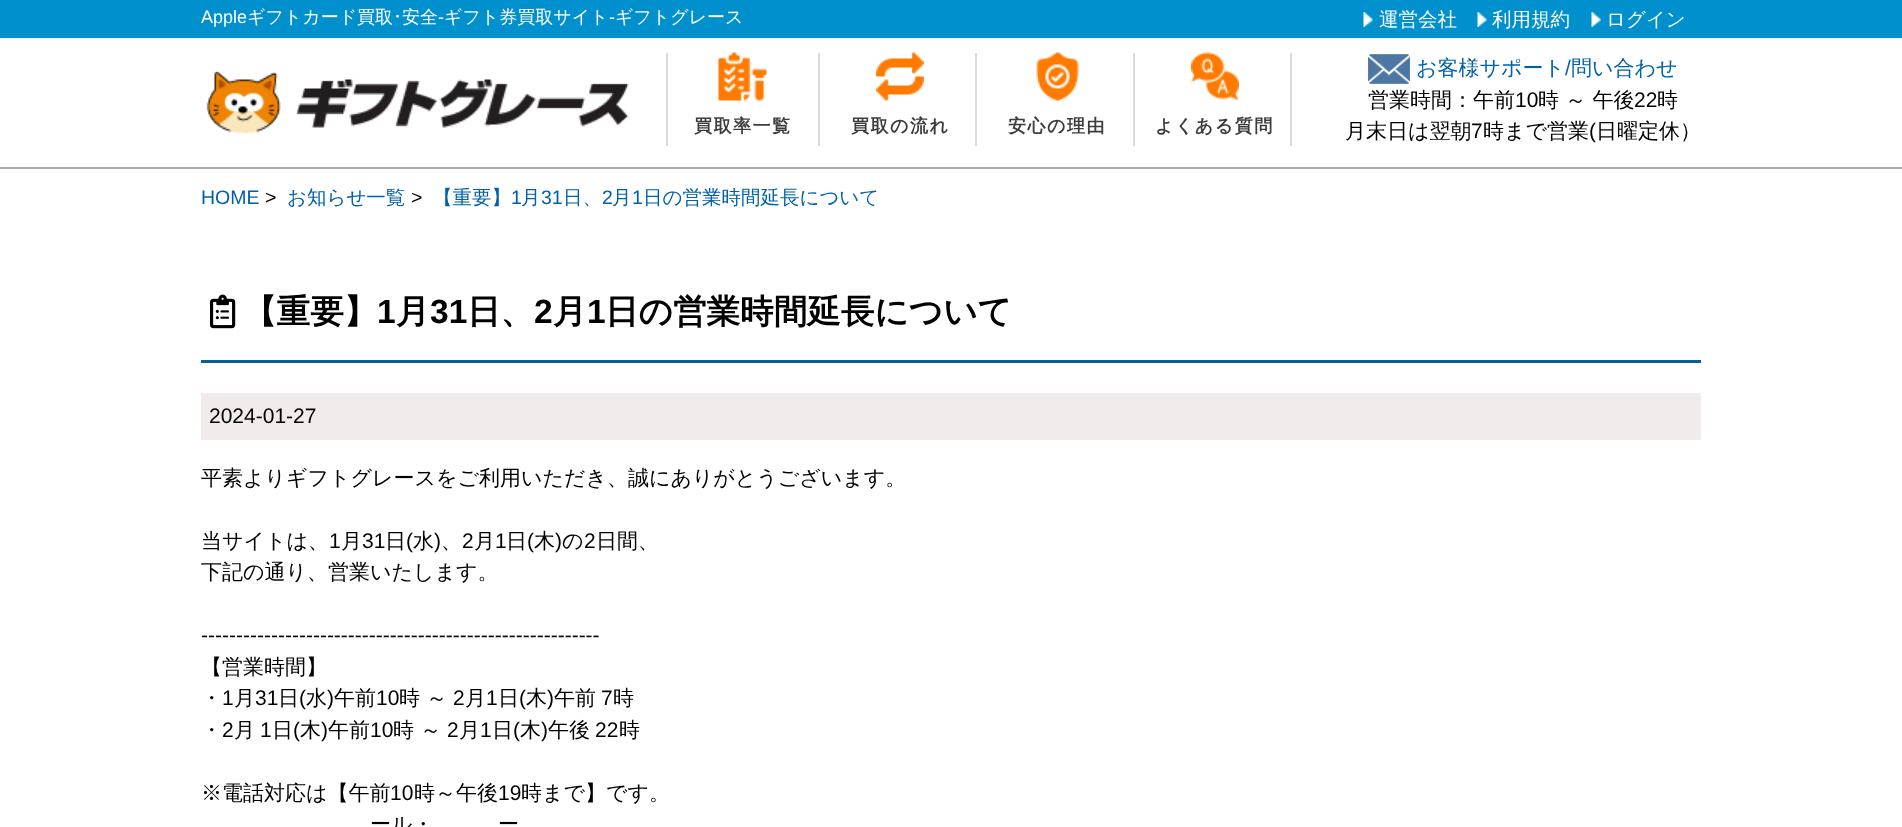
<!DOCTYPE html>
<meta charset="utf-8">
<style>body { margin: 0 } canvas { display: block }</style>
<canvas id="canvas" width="1902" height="827"></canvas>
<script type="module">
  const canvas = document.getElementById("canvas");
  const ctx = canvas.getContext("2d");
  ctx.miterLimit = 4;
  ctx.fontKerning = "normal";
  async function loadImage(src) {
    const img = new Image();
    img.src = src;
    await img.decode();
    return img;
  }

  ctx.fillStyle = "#ffffff";
  ctx.fillRect(0, 0, 1902, 827);
  ctx.fillStyle = "#adabab";
  ctx.fillRect(0, 167, 1902, 2);
  ctx.fillStyle = "#0090cd";
  ctx.fillRect(0, 0, 1902, 38);
  ctx.font = "18px Liberation Sans";
  ctx.fillStyle = "#ffffff";
  ctx.fillText("Apple", 201, 23);
  ctx.font = "500 18px WenQuanYi Zen Hei";
  ctx.fillText("ギフトカード買取", 247, 23);
  ctx.font = "18px IPAPGothic";
  ctx.fillText("･", 393, 23);
  ctx.font = "500 18px WenQuanYi Zen Hei";
  ctx.fillText("安全", 402, 23);
  ctx.font = "18px Liberation Sans";
  ctx.fillText("-", 438, 23);
  ctx.font = "500 18px WenQuanYi Zen Hei";
  ctx.fillText("ギフト券買取サイト", 444, 23);
  ctx.font = "18px Liberation Sans";
  ctx.fillText("-", 609, 23);
  ctx.font = "500 18px WenQuanYi Zen Hei";
  ctx.fillText("ギフトグレース", 615, 23);
  ctx.drawImage(await loadImage("img1.png"), 1363, 12, 10, 15);
  ctx.font = "500 19.5px WenQuanYi Zen Hei";
  ctx.fillText("運営会社", 1379, 26);
  ctx.drawImage(await loadImage("img1.png"), 1477, 12, 10, 15);
  ctx.fillText("利用規約", 1492, 26);
  ctx.drawImage(await loadImage("img2.png"), 1591, 12, 10, 15);
  ctx.fillText("ログイン", 1606, 26);
  ctx.drawImage(await loadImage("img3.png"), 206, 71, 423, 63);
  ctx.drawImage(await loadImage("img4.png"), 718, 52, 49, 49);
  ctx.fillStyle = "#dcdbdb";
  ctx.fillRect(818, 53, 2, 93);
  ctx.fillRect(666, 53, 2, 93);
  ctx.letterSpacing = "1.5px";
  ctx.font = "bold 18px WenQuanYi Zen Hei";
  ctx.fillStyle = "#3d3d3d";
  ctx.fillText("買取率一覧", 694, 132);
  ctx.drawImage(await loadImage("img5.png"), 876, 52, 48, 49);
  ctx.fillStyle = "#dcdbdb";
  ctx.fillRect(975, 53, 2, 93);
  ctx.fillStyle = "#3d3d3d";
  ctx.fillText("買取の流れ", 851, 132);
  ctx.drawImage(await loadImage("img6.png"), 1036, 52, 43, 49);
  ctx.fillStyle = "#dcdbdb";
  ctx.fillRect(1133, 53, 2, 93);
  ctx.fillStyle = "#3d3d3d";
  ctx.fillText("安心の理由", 1008, 132);
  ctx.drawImage(await loadImage("img7.png"), 1191, 52, 48, 49);
  ctx.fillStyle = "#dcdbdb";
  ctx.fillRect(1290, 53, 2, 93);
  ctx.fillStyle = "#3d3d3d";
  ctx.fillText("よくある質問", 1155, 132);
  ctx.drawImage(await loadImage("img8.png"), 1368, 54, 42, 30);
  ctx.letterSpacing = "0px";
  ctx.font = "500 21px WenQuanYi Zen Hei";
  ctx.fillStyle = "#0061a8";
  ctx.fillText("お客様サポート", 1416, 75);
  ctx.font = "21px Liberation Sans";
  ctx.fillText("/", 1565, 75);
  ctx.font = "500 21px WenQuanYi Zen Hei";
  ctx.fillText("問い合わせ", 1571, 75);
  ctx.fillStyle = "#000000";
  ctx.fillText("営業時間：午前", 1368, 107);
  ctx.font = "21px Liberation Sans";
  ctx.fillText("10", 1515, 107);
  ctx.font = "500 21px WenQuanYi Zen Hei";
  ctx.fillText("時 ～ 午後", 1538, 107);
  ctx.font = "21px Liberation Sans";
  ctx.fillText("22", 1634, 107);
  ctx.font = "500 21px WenQuanYi Zen Hei";
  ctx.fillText("時", 1657, 107);
  ctx.fillText("月末日は翌朝", 1345, 138);
  ctx.font = "21px Liberation Sans";
  ctx.fillText("7", 1471, 138);
  ctx.font = "500 21px WenQuanYi Zen Hei";
  ctx.fillText("時まで営業", 1483, 138);
  ctx.font = "21px Liberation Sans";
  ctx.fillText("(", 1589, 138);
  ctx.font = "500 21px WenQuanYi Zen Hei";
  ctx.fillText("日曜定休）", 1596, 138);
  ctx.font = "19.5px Liberation Sans";
  ctx.fillStyle = "#0061a8";
  ctx.fillText("HOME", 201, 204);
  ctx.fillStyle = "#000000";
  ctx.fillText(">", 265, 204);
  ctx.font = "500 19.5px WenQuanYi Zen Hei";
  ctx.fillStyle = "#0061a8";
  ctx.fillText("お知らせ一覧", 287, 204);
  ctx.font = "19.5px Liberation Sans";
  ctx.fillStyle = "#000000";
  ctx.fillText(">", 411, 204);
  ctx.font = "500 19.5px WenQuanYi Zen Hei";
  ctx.fillStyle = "#0061a8";
  ctx.fillText("【重要】", 433, 204);
  ctx.font = "19.5px Liberation Sans";
  ctx.fillText("1", 511, 204);
  ctx.font = "500 19.5px WenQuanYi Zen Hei";
  ctx.fillText("月", 521, 204);
  ctx.font = "19.5px Liberation Sans";
  ctx.fillText("31", 541, 204);
  ctx.font = "500 19.5px WenQuanYi Zen Hei";
  ctx.fillText("日、", 563, 204);
  ctx.font = "19.5px Liberation Sans";
  ctx.fillText("2", 602, 204);
  ctx.font = "500 19.5px WenQuanYi Zen Hei";
  ctx.fillText("月", 612, 204);
  ctx.font = "19.5px Liberation Sans";
  ctx.fillText("1", 632, 204);
  ctx.font = "500 19.5px WenQuanYi Zen Hei";
  ctx.fillText("日の営業時間延長について", 643, 204);
  ctx.fillStyle = "#076094";
  ctx.fillRect(201, 360, 1500, 3);
  ctx.drawImage(await loadImage("img9.png"), 210, 294, 26, 35);
  ctx.font = "bold 33.6px WenQuanYi Zen Hei";
  ctx.fillStyle = "#000000";
  ctx.fillText("【重要】", 243, 323);
  ctx.font = "bold 33.6px Liberation Sans";
  ctx.fillText("1", 377, 323);
  ctx.font = "bold 33.6px WenQuanYi Zen Hei";
  ctx.fillText("月", 396, 323);
  ctx.font = "bold 33.6px Liberation Sans";
  ctx.fillText("31", 430, 323);
  ctx.font = "bold 33.6px WenQuanYi Zen Hei";
  ctx.fillText("日、", 467, 323);
  ctx.font = "bold 33.6px Liberation Sans";
  ctx.fillText("2", 534, 323);
  ctx.font = "bold 33.6px WenQuanYi Zen Hei";
  ctx.fillText("月", 553, 323);
  ctx.font = "bold 33.6px Liberation Sans";
  ctx.fillText("1", 587, 323);
  ctx.font = "bold 33.6px WenQuanYi Zen Hei";
  ctx.fillText("日の営業時間延長について", 605, 323);
  ctx.fillStyle = "#f1ebeb";
  ctx.fillRect(201, 393, 1500, 47);
  ctx.font = "21px Liberation Sans";
  ctx.fillStyle = "#000000";
  ctx.fillText("2024-01-27", 209, 423);
  ctx.font = "500 21px WenQuanYi Zen Hei";
  ctx.fillText("平素よりギフトグレースをご利用いただき、誠にありがとうございます。", 201, 485);
  ctx.fillText("当サイトは、", 201, 548);
  ctx.font = "21px Liberation Sans";
  ctx.fillText("1", 329, 548);
  ctx.font = "500 21px WenQuanYi Zen Hei";
  ctx.fillText("月", 341, 548);
  ctx.font = "21px Liberation Sans";
  ctx.fillText("31", 362, 548);
  ctx.font = "500 21px WenQuanYi Zen Hei";
  ctx.fillText("日", 385, 548);
  ctx.font = "21px Liberation Sans";
  ctx.fillText("(", 406, 548);
  ctx.font = "500 21px WenQuanYi Zen Hei";
  ctx.fillText("水", 413, 548);
  ctx.font = "21px Liberation Sans";
  ctx.fillText(")", 434, 548);
  ctx.font = "500 21px WenQuanYi Zen Hei";
  ctx.fillText("、", 441, 548);
  ctx.font = "21px Liberation Sans";
  ctx.fillText("2", 462, 548);
  ctx.font = "500 21px WenQuanYi Zen Hei";
  ctx.fillText("月", 474, 548);
  ctx.font = "21px Liberation Sans";
  ctx.fillText("1", 495, 548);
  ctx.font = "500 21px WenQuanYi Zen Hei";
  ctx.fillText("日", 506, 548);
  ctx.font = "21px Liberation Sans";
  ctx.fillText("(", 527, 548);
  ctx.font = "500 21px WenQuanYi Zen Hei";
  ctx.fillText("木", 534, 548);
  ctx.font = "21px Liberation Sans";
  ctx.fillText(")", 555, 548);
  ctx.font = "500 21px WenQuanYi Zen Hei";
  ctx.fillText("の", 562, 548);
  ctx.font = "21px Liberation Sans";
  ctx.fillText("2", 584, 548);
  ctx.font = "500 21px WenQuanYi Zen Hei";
  ctx.fillText("日間、", 596, 548);
  ctx.fillText("下記の通り、営業いたします。", 201, 579);
  ctx.font = "21px Liberation Sans";
  ctx.fillText("---------------------------------------------------------", 201, 642);
  ctx.font = "500 21px WenQuanYi Zen Hei";
  ctx.fillText("【営業時間】", 201, 674);
  ctx.fillText("・", 201, 705);
  ctx.font = "21px Liberation Sans";
  ctx.fillText("1", 222, 705);
  ctx.font = "500 21px WenQuanYi Zen Hei";
  ctx.fillText("月", 234, 705);
  ctx.font = "21px Liberation Sans";
  ctx.fillText("31", 255, 705);
  ctx.font = "500 21px WenQuanYi Zen Hei";
  ctx.fillText("日", 278, 705);
  ctx.font = "21px Liberation Sans";
  ctx.fillText("(", 299, 705);
  ctx.font = "500 21px WenQuanYi Zen Hei";
  ctx.fillText("水", 306, 705);
  ctx.font = "21px Liberation Sans";
  ctx.fillText(")", 327, 705);
  ctx.font = "500 21px WenQuanYi Zen Hei";
  ctx.fillText("午前", 334, 705);
  ctx.font = "21px Liberation Sans";
  ctx.fillText("10", 376, 705);
  ctx.font = "500 21px WenQuanYi Zen Hei";
  ctx.fillText("時 ～", 399, 705);
  ctx.font = "21px Liberation Sans";
  ctx.fillText("2", 453, 705);
  ctx.font = "500 21px WenQuanYi Zen Hei";
  ctx.fillText("月", 465, 705);
  ctx.font = "21px Liberation Sans";
  ctx.fillText("1", 486, 705);
  ctx.font = "500 21px WenQuanYi Zen Hei";
  ctx.fillText("日", 498, 705);
  ctx.font = "21px Liberation Sans";
  ctx.fillText("(", 519, 705);
  ctx.font = "500 21px WenQuanYi Zen Hei";
  ctx.fillText("木", 526, 705);
  ctx.font = "21px Liberation Sans";
  ctx.fillText(")", 547, 705);
  ctx.font = "500 21px WenQuanYi Zen Hei";
  ctx.fillText("午前", 554, 705);
  ctx.font = "21px Liberation Sans";
  ctx.fillText("7", 601, 705);
  ctx.font = "500 21px WenQuanYi Zen Hei";
  ctx.fillText("時", 613, 705);
  ctx.fillText("・", 201, 737);
  ctx.font = "21px Liberation Sans";
  ctx.fillText("2", 222, 737);
  ctx.font = "500 21px WenQuanYi Zen Hei";
  ctx.fillText("月", 234, 737);
  ctx.font = "21px Liberation Sans";
  ctx.fillText("1", 260, 737);
  ctx.font = "500 21px WenQuanYi Zen Hei";
  ctx.fillText("日", 272, 737);
  ctx.font = "21px Liberation Sans";
  ctx.fillText("(", 293, 737);
  ctx.font = "500 21px WenQuanYi Zen Hei";
  ctx.fillText("木", 300, 737);
  ctx.font = "21px Liberation Sans";
  ctx.fillText(")", 321, 737);
  ctx.font = "500 21px WenQuanYi Zen Hei";
  ctx.fillText("午前", 328, 737);
  ctx.font = "21px Liberation Sans";
  ctx.fillText("10", 370, 737);
  ctx.font = "500 21px WenQuanYi Zen Hei";
  ctx.fillText("時 ～", 393, 737);
  ctx.font = "21px Liberation Sans";
  ctx.fillText("2", 447, 737);
  ctx.font = "500 21px WenQuanYi Zen Hei";
  ctx.fillText("月", 459, 737);
  ctx.font = "21px Liberation Sans";
  ctx.fillText("1", 480, 737);
  ctx.font = "500 21px WenQuanYi Zen Hei";
  ctx.fillText("日", 492, 737);
  ctx.font = "21px Liberation Sans";
  ctx.fillText("(", 513, 737);
  ctx.font = "500 21px WenQuanYi Zen Hei";
  ctx.fillText("木", 520, 737);
  ctx.font = "21px Liberation Sans";
  ctx.fillText(")", 541, 737);
  ctx.font = "500 21px WenQuanYi Zen Hei";
  ctx.fillText("午後", 548, 737);
  ctx.font = "21px Liberation Sans";
  ctx.fillText("22", 595, 737);
  ctx.font = "500 21px WenQuanYi Zen Hei";
  ctx.fillText("時", 619, 737);
  ctx.fillText("※電話対応は【午前", 201, 800);
  ctx.font = "21px Liberation Sans";
  ctx.fillText("10", 390, 800);
  ctx.font = "500 21px WenQuanYi Zen Hei";
  ctx.fillText("時～午後", 414, 800);
  ctx.font = "21px Liberation Sans";
  ctx.fillText("19", 498, 800);
  ctx.font = "500 21px WenQuanYi Zen Hei";
  ctx.fillText("時まで】です。", 521, 800);
  ctx.fillText("ール・", 370, 831);
  ctx.fillText("ー", 498, 831);
</script>
